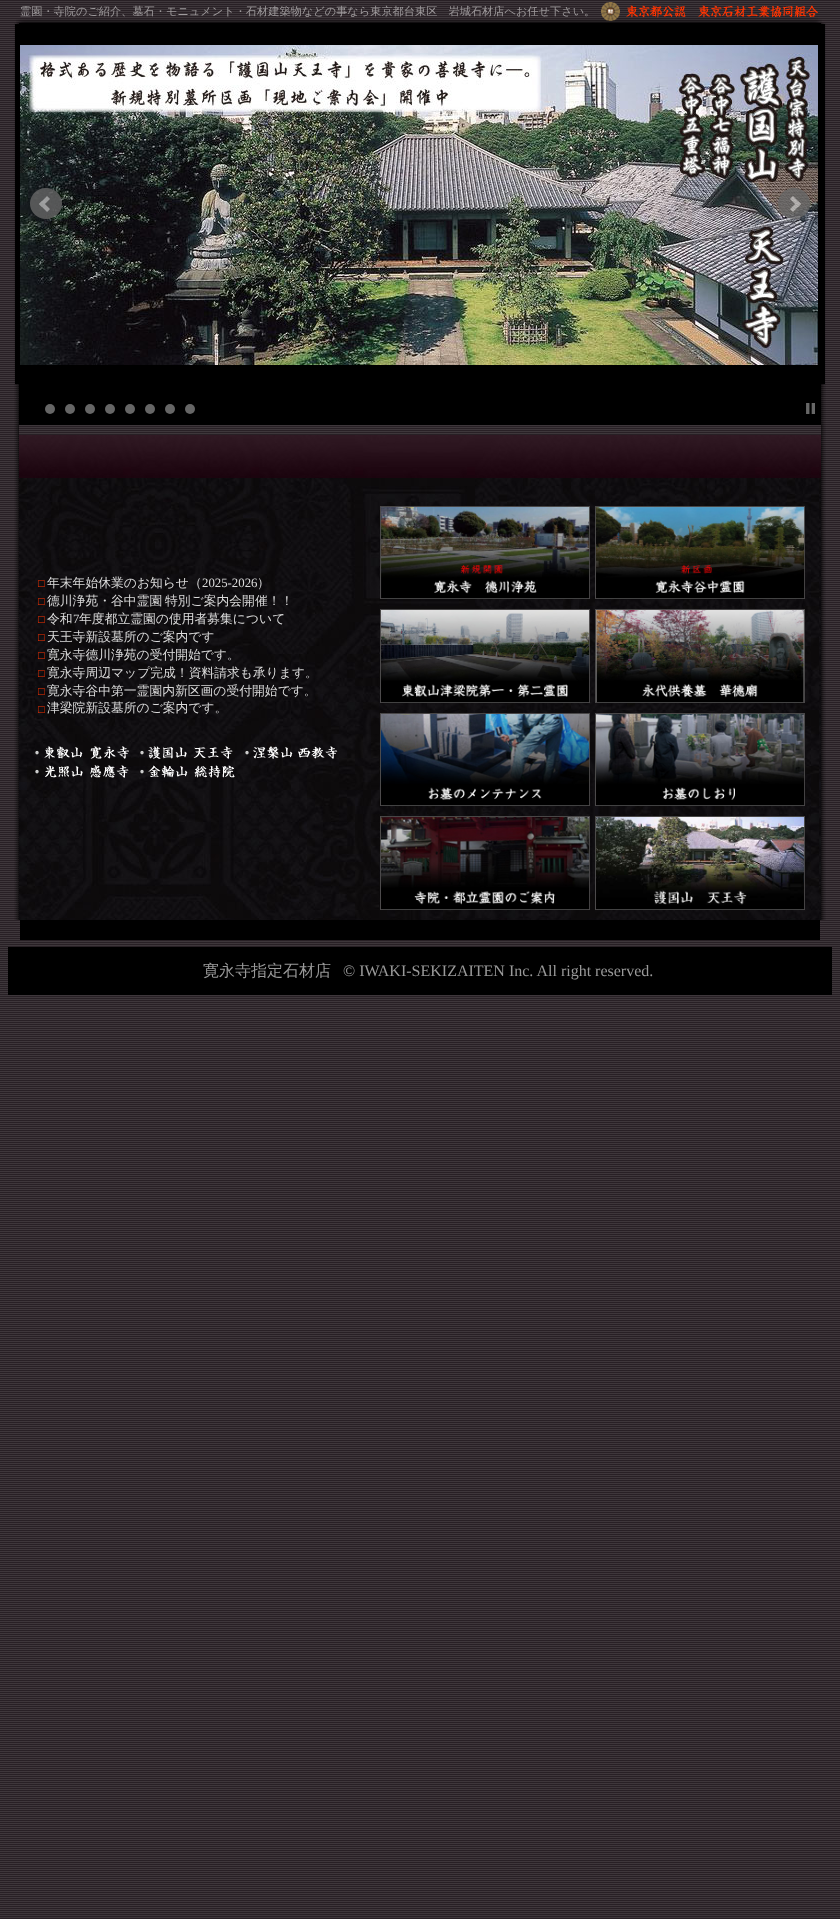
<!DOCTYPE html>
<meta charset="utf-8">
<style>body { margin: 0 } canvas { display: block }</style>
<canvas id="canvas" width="840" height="1919"></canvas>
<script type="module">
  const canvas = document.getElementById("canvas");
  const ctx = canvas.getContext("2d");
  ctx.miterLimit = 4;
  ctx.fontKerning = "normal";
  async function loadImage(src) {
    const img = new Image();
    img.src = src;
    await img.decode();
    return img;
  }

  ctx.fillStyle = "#ffffff";
  ctx.fillRect(0, 0, 840, 1919);
  ctx.drawImage(await loadImage("img1.png"), 0, 0, 840, 1919);
  ctx.drawImage(await loadImage("img2.png"), 16, 19, 806, 4);
  ctx.font = "500 11.2px WenQuanYi Zen Hei";
  ctx.fillStyle = "#9f9b9d";
  ctx.fillText("霊園・寺院のご紹介、墓石・モニュメント・石材建築物などの事なら東京都台東区　岩城石材店へお任せ下さい。", 20, 15);
  ctx.drawImage(await loadImage("img3.png"), 601, 2, 217, 19);
  ctx.drawImage(await loadImage("img4.png"), 14, 23, 5, 897);
  ctx.fillStyle = "#000000";
  ctx.fillRect(19, 23, 802, 402);
  ctx.drawImage(await loadImage("img20.png"), 821, 23, 5, 897);
  ctx.fillRect(15, 24, 810, 360);
  ctx.drawImage(await loadImage("img5.png"), 20, 45, 798, 320);
  ctx.drawImage(await loadImage("img6.png"), 30, 188, 32, 31);
  ctx.drawImage(await loadImage("img7.png"), 778, 188, 32, 31);
  ctx.fillStyle = "#666666";
  ctx.beginPath();
  ctx.arc(50, 409, 5, 0, Math.PI * 2);
  ctx.fill();
  ctx.beginPath();
  ctx.arc(70, 409, 5, 0, Math.PI * 2);
  ctx.fill();
  ctx.beginPath();
  ctx.arc(90, 409, 5, 0, Math.PI * 2);
  ctx.fill();
  ctx.beginPath();
  ctx.arc(110, 409, 5, 0, Math.PI * 2);
  ctx.fill();
  ctx.beginPath();
  ctx.arc(130, 409, 5, 0, Math.PI * 2);
  ctx.fill();
  ctx.beginPath();
  ctx.arc(150, 409, 5, 0, Math.PI * 2);
  ctx.fill();
  ctx.beginPath();
  ctx.arc(170, 409, 5, 0, Math.PI * 2);
  ctx.fill();
  ctx.beginPath();
  ctx.arc(190, 409, 5, 0, Math.PI * 2);
  ctx.fill();
  ctx.drawImage(await loadImage("img8.png"), 806, 403, 9, 11);
  ctx.drawImage(await loadImage("img9.png"), 19, 435, 802, 43);
  ctx.drawImage(await loadImage("img10.png"), 19, 478, 802, 442);
  ctx.font = "11.2px Liberation Serif";
  ctx.fillStyle = "#ff3300";
  ctx.fillText("□", 38, 587);
  ctx.font = "500 12.8px WenQuanYi Zen Hei";
  ctx.fillStyle = "#dbdbdb";
  ctx.fillText("年末年始休業のお知らせ（", 47, 587);
  ctx.font = "12.8px Liberation Serif";
  ctx.fillText("2025-2026", 202, 587);
  ctx.font = "500 12.8px WenQuanYi Zen Hei";
  ctx.fillText("）", 257, 587);
  ctx.font = "11.2px Liberation Serif";
  ctx.fillStyle = "#ff3300";
  ctx.fillText("□", 38, 605);
  ctx.wordSpacing = "-1px";
  ctx.font = "500 12.8px WenQuanYi Zen Hei";
  ctx.fillStyle = "#dbdbdb";
  ctx.fillText("德川浄苑・谷中霊園 特別ご案内会開催！！", 47, 605);
  ctx.wordSpacing = "0px";
  ctx.font = "11.2px Liberation Serif";
  ctx.fillStyle = "#ff3300";
  ctx.fillText("□", 38, 623);
  ctx.font = "500 12.8px WenQuanYi Zen Hei";
  ctx.fillStyle = "#dbdbdb";
  ctx.fillText("令和", 47, 623);
  ctx.font = "12.8px Liberation Serif";
  ctx.fillText("7", 73, 623);
  ctx.font = "500 12.8px WenQuanYi Zen Hei";
  ctx.fillText("年度都立霊園の使用者募集について", 79, 623);
  ctx.font = "11.2px Liberation Serif";
  ctx.fillStyle = "#ff3300";
  ctx.fillText("□", 38, 641);
  ctx.font = "500 12.8px WenQuanYi Zen Hei";
  ctx.fillStyle = "#dbdbdb";
  ctx.fillText("天王寺新設墓所のご案内です", 47, 641);
  ctx.font = "11.2px Liberation Serif";
  ctx.fillStyle = "#ff3300";
  ctx.fillText("□", 38, 659);
  ctx.font = "500 12.8px WenQuanYi Zen Hei";
  ctx.fillStyle = "#dbdbdb";
  ctx.fillText("寛永寺德川浄苑の受付開始です。", 47, 659);
  ctx.font = "11.2px Liberation Serif";
  ctx.fillStyle = "#ff3300";
  ctx.fillText("□", 38, 677);
  ctx.font = "500 12.8px WenQuanYi Zen Hei";
  ctx.fillStyle = "#dbdbdb";
  ctx.fillText("寛永寺周辺マップ完成！資料請求も承ります。", 47, 677);
  ctx.font = "11.2px Liberation Serif";
  ctx.fillStyle = "#ff3300";
  ctx.fillText("□", 38, 695);
  ctx.font = "500 12.8px WenQuanYi Zen Hei";
  ctx.fillStyle = "#dbdbdb";
  ctx.fillText("寛永寺谷中第一霊園内新区画の受付開始です。", 47, 695);
  ctx.font = "11.2px Liberation Serif";
  ctx.fillStyle = "#ff3300";
  ctx.fillText("□", 38, 713);
  ctx.font = "500 12.8px WenQuanYi Zen Hei";
  ctx.fillStyle = "#dbdbdb";
  ctx.fillText("津梁院新設墓所のご案内です。", 47, 712);
  ctx.drawImage(await loadImage("img11.png"), 35, 746, 303, 32);
  ctx.drawImage(await loadImage("img12.png"), 380, 506, 210, 93);
  ctx.drawImage(await loadImage("img13.png"), 380, 609, 210, 94);
  ctx.drawImage(await loadImage("img14.png"), 380, 713, 210, 93);
  ctx.drawImage(await loadImage("img15.png"), 380, 816, 210, 94);
  ctx.drawImage(await loadImage("img16.png"), 595, 506, 210, 93);
  ctx.drawImage(await loadImage("img17.png"), 595, 609, 210, 94);
  ctx.drawImage(await loadImage("img18.png"), 595, 713, 210, 93);
  ctx.drawImage(await loadImage("img19.png"), 595, 816, 210, 94);
  ctx.fillStyle = "#000000";
  ctx.fillRect(20, 920, 800, 20);
  ctx.fillRect(8, 947, 824, 48);
  ctx.font = "500 16px WenQuanYi Zen Hei";
  ctx.fillStyle = "#999999";
  ctx.fillText("寛永寺指定石材店", 203, 976);
  ctx.font = "16px Liberation Serif";
  ctx.fillText("© IWAKI-SEKIZAITEN Inc. All right reserved.", 343, 976);
</script>
